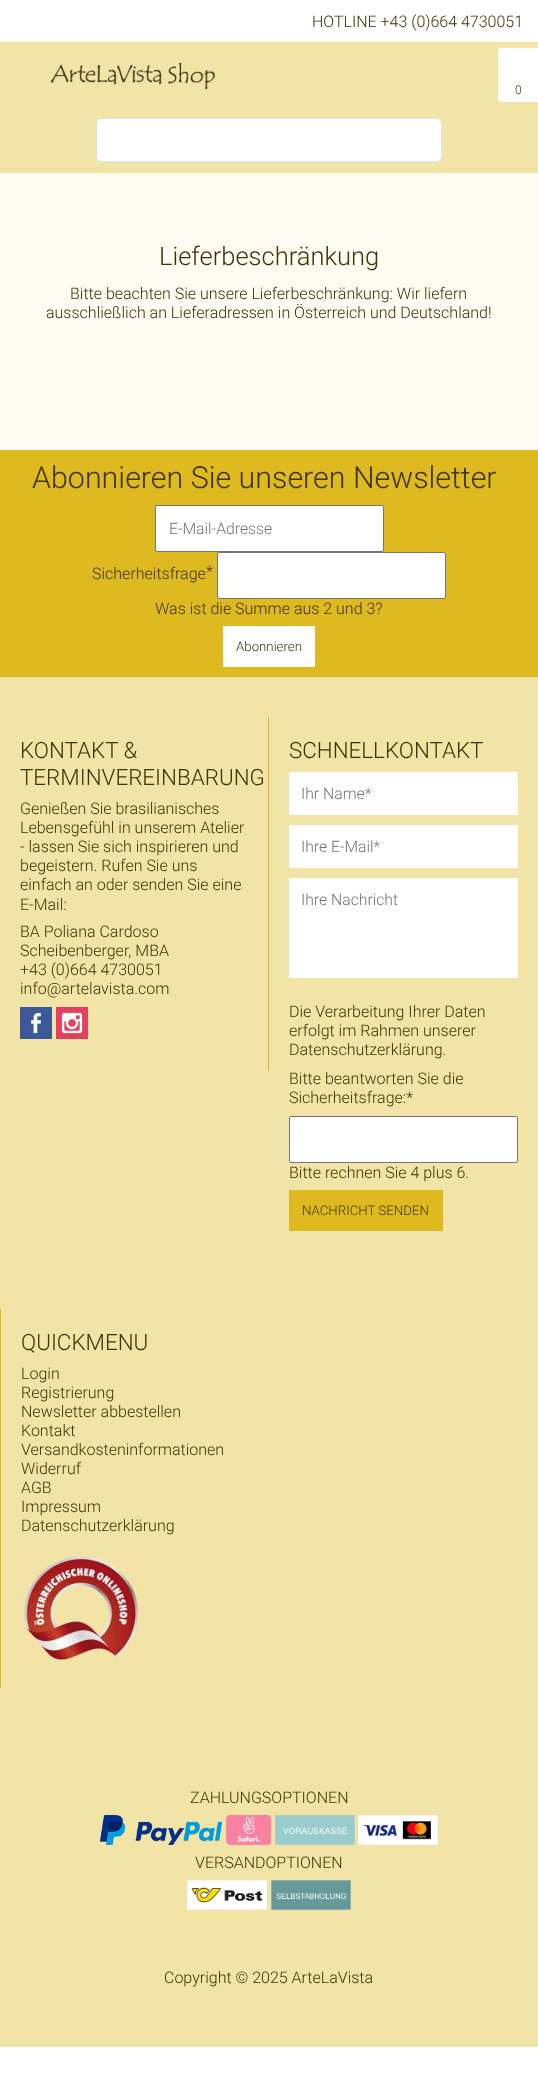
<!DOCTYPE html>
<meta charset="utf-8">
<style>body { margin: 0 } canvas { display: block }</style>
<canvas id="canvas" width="538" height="2080"></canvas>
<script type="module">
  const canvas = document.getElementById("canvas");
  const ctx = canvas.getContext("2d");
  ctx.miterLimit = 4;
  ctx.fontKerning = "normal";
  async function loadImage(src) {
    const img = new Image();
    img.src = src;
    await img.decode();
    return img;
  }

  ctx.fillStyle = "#ffffff";
  ctx.fillRect(0, 0, 538, 2080);
  ctx.fillStyle = "#fdfbf2";
  ctx.fillRect(0, 173, 538, 277);
  ctx.font = "300 16px Roboto";
  ctx.fillStyle = "#3e3304";
  ctx.fillText("HOTLINE +43 (0)664 4730051", 312, 27);
  ctx.fillStyle = "#f2e3a6";
  ctx.fillRect(0, 42, 538, 131);
  ctx.drawImage(await loadImage("img1.png"), 50, 62, 165, 28);
  ctx.fillStyle = "#ffffff";
  ctx.beginPath();
  ctx.roundRect(96.5, 118.5, 345, 43, 4.5);
  ctx.fill();
  ctx.strokeStyle = "#d7e1ed";
  ctx.stroke();
  ctx.beginPath();
  ctx.roundRect(498, 48, 40, 54, [3, 0, 0, 3]);
  ctx.fill();
  ctx.font = "300 12px Roboto";
  ctx.fillStyle = "#3e3304";
  ctx.fillText("0", 515, 94);
  ctx.font = "300 25.5px Roboto";
  ctx.fillText("Lieferbeschränkung", 159, 265);
  ctx.font = "300 16px Roboto";
  ctx.fillText("Bitte beachten Sie unsere Lieferbeschränkung: Wir liefern", 70, 299);
  ctx.fillText("ausschließlich an Lieferadressen in Österreich und Deutschland!", 46, 318);
  ctx.fillStyle = "#dfb920";
  ctx.fillRect(0, 450, 538, 227);
  ctx.font = "300 30.4px Roboto";
  ctx.fillStyle = "#3e3304";
  ctx.fillText("Abonnieren Sie unseren Newsletter", 32, 488);
  ctx.fillStyle = "#ffffff";
  ctx.beginPath();
  ctx.roundRect(155.5, 505.5, 228, 46, 1.5);
  ctx.fill();
  ctx.strokeStyle = "#767676";
  ctx.stroke();
  ctx.font = "300 15.75px Roboto";
  ctx.fillStyle = "#757575";
  ctx.fillText("E-Mail-Adresse", 169, 534);
  ctx.font = "300 16px Roboto";
  ctx.fillStyle = "#3e3304";
  ctx.fillText("Sicherheitsfrage", 92, 579);
  ctx.fillText("*", 206, 577);
  ctx.fillStyle = "#ffffff";
  ctx.beginPath();
  ctx.roundRect(217.5, 552.5, 228, 46, 1.5);
  ctx.fill();
  ctx.stroke();
  ctx.fillStyle = "#3e3304";
  ctx.fillText("Was ist die Summe aus 2 und 3?", 155, 614);
  ctx.fillStyle = "#ffffff";
  ctx.fillRect(223, 626, 92, 41);
  ctx.font = "300 13.25px Roboto";
  ctx.fillStyle = "#3e3304";
  ctx.fillText("Abonnieren", 236, 651);
  ctx.fillStyle = "#f2e3a6";
  ctx.fillRect(0, 677, 538, 1370);
  ctx.fillStyle = "#dfb920";
  ctx.fillRect(268, 717, 1, 354);
  ctx.font = "300 22.4px Roboto";
  ctx.fillStyle = "#3e3304";
  ctx.fillText("KONTAKT &", 20, 758);
  ctx.fillText("TERMINVEREINBARUNG", 20, 785);
  ctx.font = "300 16px Roboto";
  ctx.fillText("Genießen Sie brasilianisches", 20, 814);
  ctx.fillText("Lebensgefühl in unserem Atelier", 20, 833);
  ctx.fillText("- lassen Sie sich inspirieren und", 20, 852);
  ctx.fillText("begeistern. Rufen Sie uns", 20, 871);
  ctx.fillText("einfach an oder senden Sie eine", 20, 890);
  ctx.fillText("E-Mail:", 20, 910);
  ctx.fillText("BA Poliana Cardoso", 20, 937);
  ctx.fillText("Scheibenberger, MBA", 20, 956);
  ctx.fillText("+43 (0)664 4730051", 20, 975);
  ctx.fillText("info@artelavista.com", 20, 994);
  ctx.drawImage(await loadImage("img2.png"), 20, 1007, 32, 32);
  ctx.drawImage(await loadImage("img3.png"), 56, 1007, 32, 32);
  ctx.font = "300 22.4px Roboto";
  ctx.fillText("SCHNELLKONTAKT", 289, 758);
  ctx.fillStyle = "#ffffff";
  ctx.fillRect(289, 772, 229, 43);
  ctx.font = "300 15.75px Roboto";
  ctx.fillStyle = "#757575";
  ctx.fillText("Ihr Name*", 301, 799);
  ctx.fillStyle = "#ffffff";
  ctx.fillRect(289, 825, 229, 43);
  ctx.fillStyle = "#757575";
  ctx.fillText("Ihre E-Mail*", 301, 852);
  ctx.fillStyle = "#ffffff";
  ctx.fillRect(289, 878, 229, 100);
  ctx.fillStyle = "#757575";
  ctx.fillText("Ihre Nachricht", 301, 905);
  ctx.font = "300 16px Roboto";
  ctx.fillStyle = "#3e3304";
  ctx.fillText("Die Verarbeitung Ihrer Daten", 289, 1017);
  ctx.fillText("erfolgt im Rahmen unserer", 289, 1036);
  ctx.fillText("Datenschutzerklärung.", 289, 1055);
  ctx.fillText("Bitte beantworten Sie die", 289, 1084);
  ctx.fillText("Sicherheitsfrage:*", 289, 1103);
  ctx.fillStyle = "#ffffff";
  ctx.beginPath();
  ctx.roundRect(289.5, 1116.5, 228, 46, 1.5);
  ctx.fill();
  ctx.stroke();
  ctx.fillStyle = "#3e3304";
  ctx.fillText("Bitte rechnen Sie 4 plus 6.", 289, 1178);
  ctx.fillStyle = "#dfb920";
  ctx.fillRect(289, 1190, 154, 41);
  ctx.font = "300 13.25px Roboto";
  ctx.fillStyle = "#3e3304";
  ctx.fillText("NACHRICHT SENDEN", 302, 1215);
  ctx.fillStyle = "#dfb920";
  ctx.fillRect(0, 1309, 1, 379);
  ctx.font = "300 22.4px Roboto";
  ctx.fillStyle = "#3e3304";
  ctx.fillText("QUICKMENU", 21, 1350);
  ctx.font = "300 16px Roboto";
  ctx.fillText("Login", 21, 1379);
  ctx.fillText("Registrierung", 21, 1398);
  ctx.fillText("Newsletter abbestellen", 21, 1417);
  ctx.fillText("Kontakt", 21, 1436);
  ctx.fillText("Versandkosteninformationen", 21, 1455);
  ctx.fillText("Widerruf", 21, 1474);
  ctx.fillText("AGB", 21, 1493);
  ctx.fillText("Impressum", 21, 1512);
  ctx.fillText("Datenschutzerklärung", 21, 1531);
  ctx.drawImage(await loadImage("img4.png"), 21, 1551, 120, 112);
  ctx.fillText("ZAHLUNGSOPTIONEN", 190, 1803);
  ctx.drawImage(await loadImage("img5.png"), 100, 1815, 122, 30);
  ctx.drawImage(await loadImage("img6.png"), 226, 1815, 45, 30);
  ctx.drawImage(await loadImage("img7.png"), 275, 1815, 80, 30);
  ctx.drawImage(await loadImage("img8.png"), 358, 1815, 80, 30);
  ctx.fillText("VERSANDOPTIONEN", 195, 1868);
  ctx.drawImage(await loadImage("img9.png"), 187, 1880, 80, 30);
  ctx.drawImage(await loadImage("img10.png"), 271, 1880, 80, 30);
  ctx.fillText("Copyright © 2025 ArteLaVista", 164, 1983);
</script>
